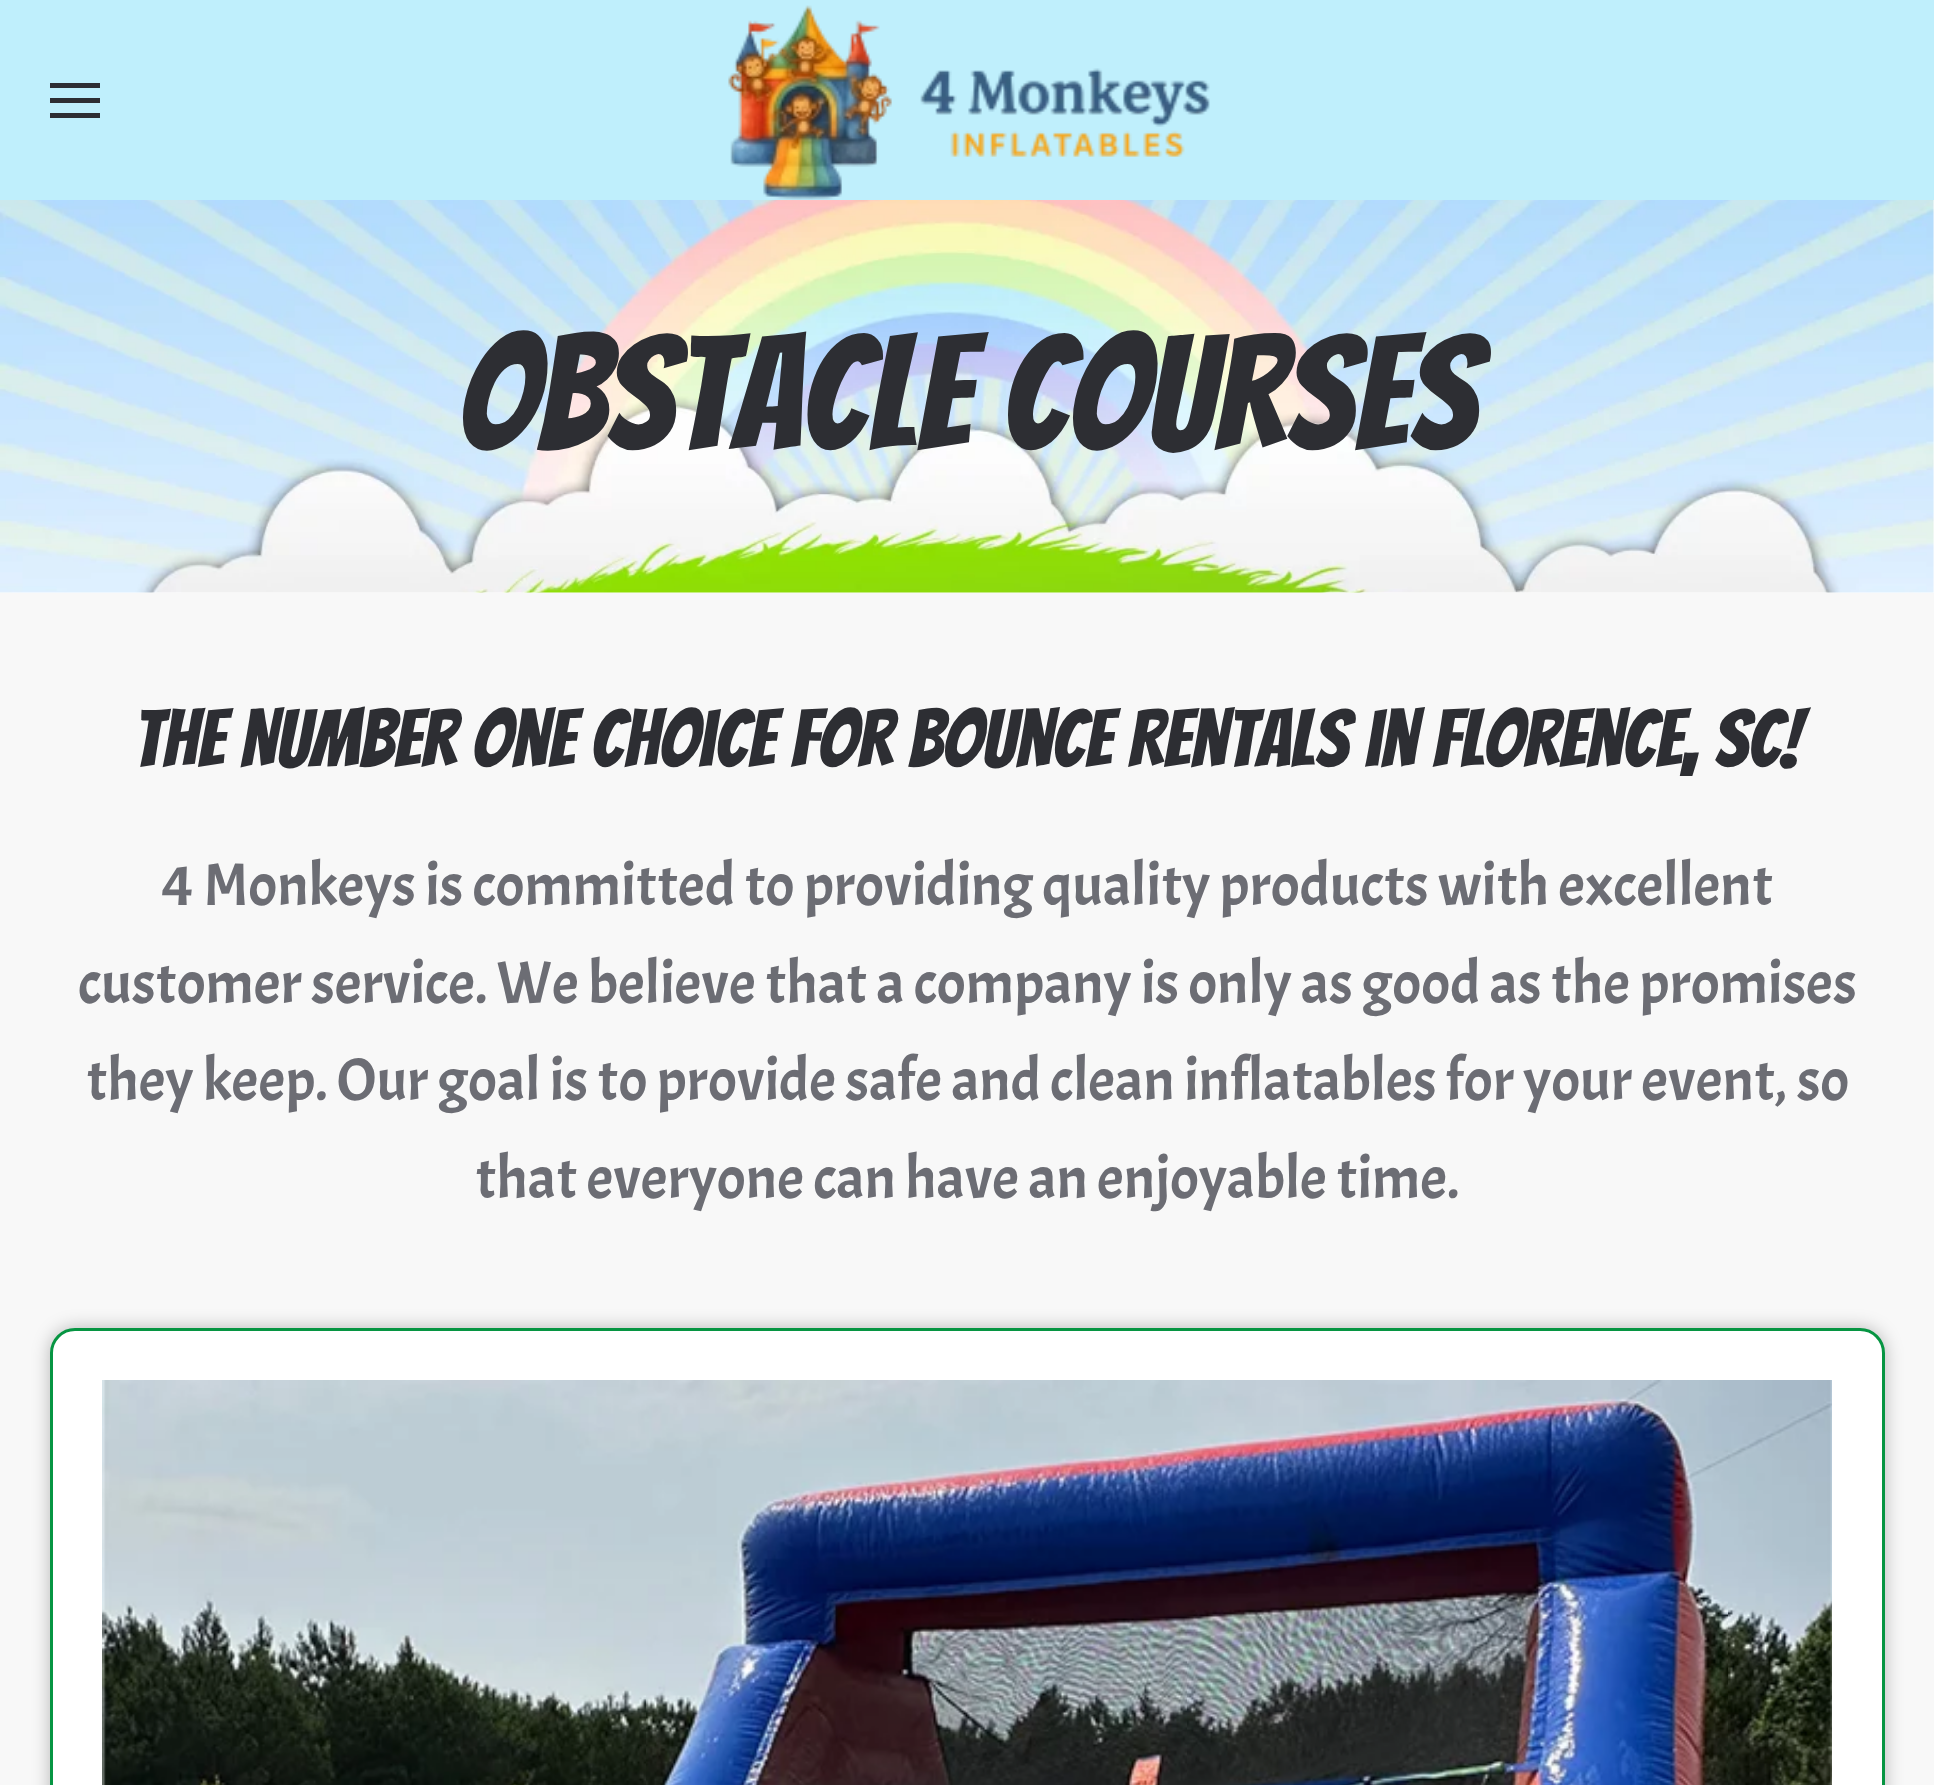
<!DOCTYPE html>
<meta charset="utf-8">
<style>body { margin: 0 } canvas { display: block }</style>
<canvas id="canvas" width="1934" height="1785"></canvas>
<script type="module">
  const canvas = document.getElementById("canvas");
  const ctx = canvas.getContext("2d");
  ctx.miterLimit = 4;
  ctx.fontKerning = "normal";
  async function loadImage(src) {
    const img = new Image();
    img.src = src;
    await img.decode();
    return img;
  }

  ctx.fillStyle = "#ffffff";
  ctx.fillRect(0, 0, 1934, 1785);
  ctx.fillStyle = "#bfeffc";
  ctx.fillRect(0, 0, 1934, 200);
  ctx.fillStyle = "#2d2e33";
  ctx.fillRect(50, 83, 50, 5);
  ctx.fillRect(50, 98, 50, 5);
  ctx.fillRect(50, 113, 50, 5);
  ctx.drawImage(await loadImage("img1.png"), 728, 5, 482, 195);
  ctx.drawImage(await loadImage("img2.png"), 0, 200, 1934, 393);
  ctx.font = "160px Bangers";
  ctx.fillText("Obstacle Courses", 458, 450);
  ctx.fillStyle = "#f8f8f8";
  ctx.fillRect(0, 593, 1934, 1192);
  ctx.font = "80px Bangers";
  ctx.fillStyle = "#2d2e33";
  ctx.fillText("The Number One Choice for Bounce Rentals in Florence, SC!", 133, 767);
  ctx.font = "60px Acme";
  ctx.fillStyle = "#6c6d74";
  ctx.fillText("4 Monkeys is committed to providing quality products with excellent", 162, 905);
  ctx.fillText("customer service. We believe that a company is only as good as the promises", 78, 1003);
  ctx.fillText("they keep. Our goal is to provide safe and clean inflatables for your event, so", 86, 1100);
  ctx.fillText("that everyone can have an enjoyable time.", 475, 1198);
  ctx.fillStyle = "rgba(0, 0, 0, 0.26)";
  ctx.filter = "blur(9px)";
  ctx.beginPath();
  ctx.roundRect(50, 1328, 1835, 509, 25);
  ctx.fill();
  ctx.filter = "none";
  ctx.fillStyle = "#ffffff";
  ctx.beginPath();
  ctx.roundRect(51.5, 1329.5, 1832, 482, 23.5);
  ctx.fill();
  ctx.strokeStyle = "#069542";
  ctx.lineWidth = 3;
  ctx.stroke();
  ctx.drawImage(await loadImage("img3.png"), 102, 1380, 1730, 405);
</script>
